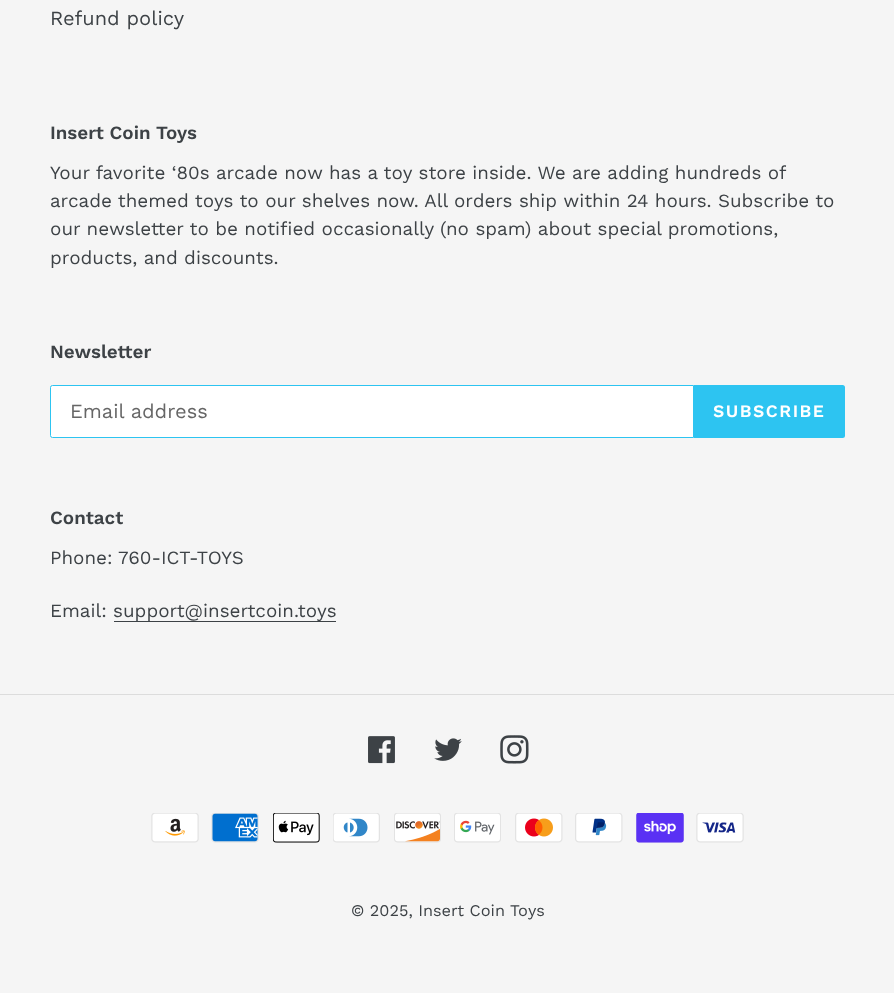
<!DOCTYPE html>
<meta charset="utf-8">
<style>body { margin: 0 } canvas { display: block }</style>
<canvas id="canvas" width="894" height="993"></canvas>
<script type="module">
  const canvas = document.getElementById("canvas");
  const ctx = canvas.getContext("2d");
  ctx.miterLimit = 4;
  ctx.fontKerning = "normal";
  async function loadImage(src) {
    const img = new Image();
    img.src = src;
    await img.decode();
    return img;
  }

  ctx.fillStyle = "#f5f5f5";
  ctx.fillRect(0, 0, 894, 993);
  ctx.font = "20px Work Sans";
  ctx.fillStyle = "#3d4246";
  ctx.fillText("Refund policy", 50, 25);
  ctx.font = "600 18.75px Work Sans";
  ctx.fillText("Insert Coin Toys", 50, 139);
  ctx.font = "18.75px Work Sans";
  ctx.fillText("Your favorite ‘80s arcade now has a toy store inside. We are adding hundreds of", 50, 179);
  ctx.fillText("arcade themed toys to our shelves now. All orders ship within 24 hours. Subscribe to", 50, 207);
  ctx.fillText("our newsletter to be notified occasionally (no spam) about special promotions,", 50, 235);
  ctx.fillText("products, and discounts.", 50, 264);
  ctx.font = "600 18.75px Work Sans";
  ctx.fillText("Newsletter", 50, 358);
  ctx.fillStyle = "#ffffff";
  ctx.beginPath();
  ctx.roundRect(50.5, 385.5, 643, 52, [2, 0, 0, 2]);
  ctx.fill();
  ctx.strokeStyle = "#2dc4f1";
  ctx.stroke();
  ctx.font = "20px Work Sans";
  ctx.fillStyle = "#666666";
  ctx.fillText("Email address", 70, 418);
  ctx.fillStyle = "#2dc4f1";
  ctx.beginPath();
  ctx.roundRect(694, 385, 151, 53, [0, 2.5, 2.5, 0]);
  ctx.fill();
  ctx.letterSpacing = "1.5px";
  ctx.font = "600 17.5px Work Sans";
  ctx.fillStyle = "#ffffff";
  ctx.fillText("SUBSCRIBE", 713, 417);
  ctx.letterSpacing = "0px";
  ctx.font = "600 18.75px Work Sans";
  ctx.fillStyle = "#3d4246";
  ctx.fillText("Contact", 50, 524);
  ctx.font = "18.75px Work Sans";
  ctx.fillText("Phone:", 50, 564);
  ctx.fillText("760-ICT-TOYS", 118, 564);
  ctx.fillText("Email: support@insertcoin.toys", 50, 617);
  ctx.fillRect(114, 621, 222, 1);
  ctx.fillStyle = "#dcdcdc";
  ctx.fillRect(0, 694, 894, 1);
  ctx.drawImage(await loadImage("img1.png"), 368, 736, 27, 28);
  ctx.drawImage(await loadImage("img2.png"), 434, 738, 28, 23);
  ctx.drawImage(await loadImage("img3.png"), 500, 735, 29, 29);
  ctx.drawImage(await loadImage("img4.png"), 151, 813, 48, 30);
  ctx.drawImage(await loadImage("img5.png"), 211, 813, 48, 30);
  ctx.drawImage(await loadImage("img6.png"), 273, 813, 47, 30);
  ctx.drawImage(await loadImage("img7.png"), 333, 813, 47, 30);
  ctx.drawImage(await loadImage("img8.png"), 394, 813, 47, 30);
  ctx.drawImage(await loadImage("img9.png"), 454, 813, 47, 30);
  ctx.drawImage(await loadImage("img10.png"), 515, 813, 48, 30);
  ctx.drawImage(await loadImage("img11.png"), 575, 813, 48, 30);
  ctx.drawImage(await loadImage("img12.png"), 636, 813, 48, 30);
  ctx.drawImage(await loadImage("img13.png"), 696, 813, 48, 30);
  ctx.font = "16.25px Work Sans";
  ctx.fillStyle = "#3d4246";
  ctx.fillText("© 2025, Insert Coin Toys", 351, 916);
</script>
